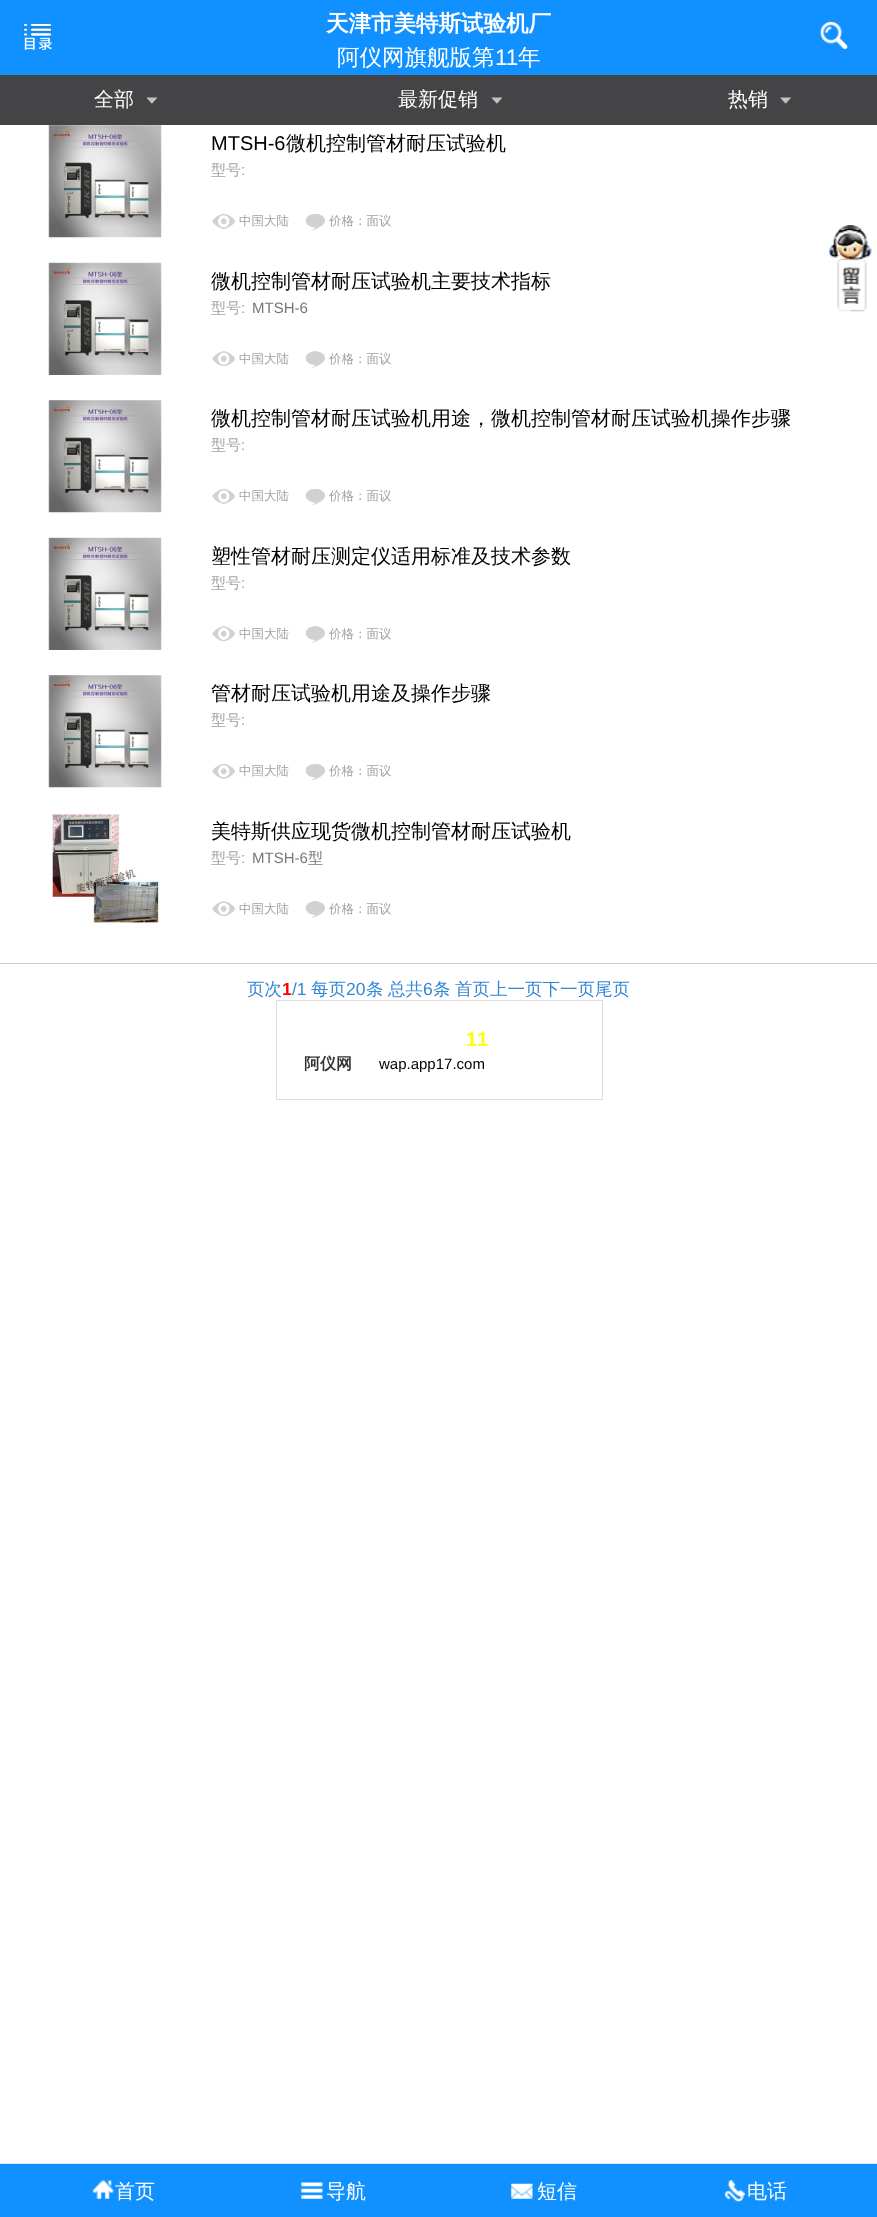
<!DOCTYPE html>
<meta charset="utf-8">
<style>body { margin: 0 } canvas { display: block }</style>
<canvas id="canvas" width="877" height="2217"></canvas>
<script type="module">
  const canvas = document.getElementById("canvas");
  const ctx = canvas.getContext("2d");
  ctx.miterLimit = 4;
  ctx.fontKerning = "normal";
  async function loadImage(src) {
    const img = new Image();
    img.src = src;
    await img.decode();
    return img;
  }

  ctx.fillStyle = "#ffffff";
  ctx.fillRect(0, 0, 877, 2217);
  ctx.fillStyle = "#1091ff";
  ctx.fillRect(0, 0, 877, 75);
  ctx.drawImage(await loadImage("img1.png"), 23, 23, 29, 27);
  ctx.font = "bold 22.5px WenQuanYi Zen Hei";
  ctx.fillStyle = "#ffffff";
  ctx.fillText("天津市美特斯试验机厂", 326, 31);
  ctx.font = "500 22.5px WenQuanYi Zen Hei";
  ctx.fillText("阿仪网旗舰版第", 337, 65);
  ctx.font = "22.5px Liberation Sans";
  ctx.fillText("11", 495, 65);
  ctx.font = "500 22.5px WenQuanYi Zen Hei";
  ctx.fillText("年", 518, 65);
  ctx.drawImage(await loadImage("img2.png"), 820, 21, 28, 29);
  ctx.fillStyle = "#444446";
  ctx.fillRect(0, 75, 877, 50);
  ctx.drawImage(await loadImage("img3.png"), 146, 97, 12, 7);
  ctx.font = "500 20px WenQuanYi Zen Hei";
  ctx.fillStyle = "#ffffff";
  ctx.fillText("全部", 94, 106);
  ctx.drawImage(await loadImage("img3.png"), 491, 97, 12, 7);
  ctx.fillText("最新促销", 398, 106);
  ctx.drawImage(await loadImage("img4.png"), 780, 97, 12, 7);
  ctx.fillText("热销", 728, 106);
  ctx.drawImage(await loadImage("img5.png"), 48, 125, 114, 113);
  ctx.font = "20px Liberation Sans";
  ctx.fillStyle = "#000000";
  ctx.fillText("MTSH-6", 211, 150);
  ctx.font = "500 20px WenQuanYi Zen Hei";
  ctx.fillText("微机控制管材耐压试验机", 286, 150);
  ctx.font = "500 15px WenQuanYi Zen Hei";
  ctx.fillStyle = "#a2a2a2";
  ctx.fillText("型号", 211, 175);
  ctx.font = "15px Liberation Sans";
  ctx.fillText(":", 241, 175);
  ctx.drawImage(await loadImage("img6.png"), 212, 214, 23, 15);
  ctx.font = "500 12.5px WenQuanYi Zen Hei";
  ctx.fillText("中国大陆", 239, 225);
  ctx.drawImage(await loadImage("img7.png"), 305, 214, 20, 17);
  ctx.fillText("价格：面议", 329, 225);
  ctx.drawImage(await loadImage("img8.png"), 48, 262, 114, 113);
  ctx.font = "500 20px WenQuanYi Zen Hei";
  ctx.fillStyle = "#000000";
  ctx.fillText("微机控制管材耐压试验机主要技术指标", 211, 288);
  ctx.font = "500 15px WenQuanYi Zen Hei";
  ctx.fillStyle = "#a2a2a2";
  ctx.fillText("型号", 211, 313);
  ctx.font = "15px Liberation Sans";
  ctx.fillText(":", 241, 313);
  ctx.fillStyle = "#777777";
  ctx.fillText("MTSH-6", 252, 313);
  ctx.drawImage(await loadImage("img9.png"), 212, 351, 23, 16);
  ctx.font = "500 12.5px WenQuanYi Zen Hei";
  ctx.fillStyle = "#a2a2a2";
  ctx.fillText("中国大陆", 239, 363);
  ctx.drawImage(await loadImage("img10.png"), 305, 351, 20, 17);
  ctx.fillText("价格：面议", 329, 363);
  ctx.drawImage(await loadImage("img5.png"), 48, 400, 114, 113);
  ctx.font = "500 20px WenQuanYi Zen Hei";
  ctx.fillStyle = "#000000";
  ctx.fillText("微机控制管材耐压试验机用途，微机控制管材耐压试验机操作步骤", 211, 425);
  ctx.font = "500 15px WenQuanYi Zen Hei";
  ctx.fillStyle = "#a2a2a2";
  ctx.fillText("型号", 211, 450);
  ctx.font = "15px Liberation Sans";
  ctx.fillText(":", 241, 450);
  ctx.drawImage(await loadImage("img6.png"), 212, 489, 23, 15);
  ctx.font = "500 12.5px WenQuanYi Zen Hei";
  ctx.fillText("中国大陆", 239, 500);
  ctx.drawImage(await loadImage("img7.png"), 305, 489, 20, 17);
  ctx.fillText("价格：面议", 329, 500);
  ctx.drawImage(await loadImage("img8.png"), 48, 537, 114, 113);
  ctx.font = "500 20px WenQuanYi Zen Hei";
  ctx.fillStyle = "#000000";
  ctx.fillText("塑性管材耐压测定仪适用标准及技术参数", 211, 563);
  ctx.font = "500 15px WenQuanYi Zen Hei";
  ctx.fillStyle = "#a2a2a2";
  ctx.fillText("型号", 211, 588);
  ctx.font = "15px Liberation Sans";
  ctx.fillText(":", 241, 588);
  ctx.drawImage(await loadImage("img9.png"), 212, 626, 23, 16);
  ctx.font = "500 12.5px WenQuanYi Zen Hei";
  ctx.fillText("中国大陆", 239, 638);
  ctx.drawImage(await loadImage("img10.png"), 305, 626, 20, 17);
  ctx.fillText("价格：面议", 329, 638);
  ctx.drawImage(await loadImage("img5.png"), 48, 675, 114, 113);
  ctx.font = "500 20px WenQuanYi Zen Hei";
  ctx.fillStyle = "#000000";
  ctx.fillText("管材耐压试验机用途及操作步骤", 211, 700);
  ctx.font = "500 15px WenQuanYi Zen Hei";
  ctx.fillStyle = "#a2a2a2";
  ctx.fillText("型号", 211, 725);
  ctx.font = "15px Liberation Sans";
  ctx.fillText(":", 241, 725);
  ctx.drawImage(await loadImage("img6.png"), 212, 764, 23, 15);
  ctx.font = "500 12.5px WenQuanYi Zen Hei";
  ctx.fillText("中国大陆", 239, 775);
  ctx.drawImage(await loadImage("img7.png"), 305, 764, 20, 17);
  ctx.fillText("价格：面议", 329, 775);
  ctx.drawImage(await loadImage("img11.png"), 52, 813, 108, 111);
  ctx.font = "500 20px WenQuanYi Zen Hei";
  ctx.fillStyle = "#000000";
  ctx.fillText("美特斯供应现货微机控制管材耐压试验机", 211, 838);
  ctx.font = "500 15px WenQuanYi Zen Hei";
  ctx.fillStyle = "#a2a2a2";
  ctx.fillText("型号", 211, 863);
  ctx.font = "15px Liberation Sans";
  ctx.fillText(":", 241, 863);
  ctx.fillStyle = "#777777";
  ctx.fillText("MTSH-6", 252, 863);
  ctx.font = "500 15px WenQuanYi Zen Hei";
  ctx.fillText("型", 308, 863);
  ctx.drawImage(await loadImage("img9.png"), 212, 901, 23, 16);
  ctx.font = "500 12.5px WenQuanYi Zen Hei";
  ctx.fillStyle = "#a2a2a2";
  ctx.fillText("中国大陆", 239, 913);
  ctx.drawImage(await loadImage("img10.png"), 305, 901, 20, 17);
  ctx.fillText("价格：面议", 329, 913);
  ctx.fillStyle = "#cbcbcb";
  ctx.fillRect(0, 963, 877, 1);
  ctx.font = "500 17.5px WenQuanYi Zen Hei";
  ctx.fillStyle = "#3386d6";
  ctx.fillText("页次", 247, 995);
  ctx.font = "bold 17.5px Liberation Sans";
  ctx.fillStyle = "#ff0000";
  ctx.fillText("1", 282, 995);
  ctx.font = "17.5px Liberation Sans";
  ctx.fillStyle = "#3386d6";
  ctx.fillText("/1", 292, 995);
  ctx.font = "500 17.5px WenQuanYi Zen Hei";
  ctx.fillText("每页", 311, 995);
  ctx.font = "17.5px Liberation Sans";
  ctx.fillText("20", 346, 995);
  ctx.font = "500 17.5px WenQuanYi Zen Hei";
  ctx.fillText("条", 366, 995);
  ctx.fillText("总共", 388, 995);
  ctx.font = "17.5px Liberation Sans";
  ctx.fillText("6", 423, 995);
  ctx.font = "500 17.5px WenQuanYi Zen Hei";
  ctx.fillText("条", 433, 995);
  ctx.fillText("首页上一页下一页尾页", 455, 995);
  ctx.drawImage(await loadImage("img12.png"), 828, 225, 44, 87);
  ctx.strokeStyle = "#dedede";
  ctx.strokeRect(276.5, 1000.5, 326, 99);
  ctx.letterSpacing = "1px";
  ctx.font = "bold 20px Liberation Sans";
  ctx.fillStyle = "#fbff00";
  ctx.fillText("11", 466, 1046);
  ctx.letterSpacing = "0px";
  ctx.font = "bold 16px WenQuanYi Zen Hei";
  ctx.fillStyle = "#333333";
  ctx.fillText("阿仪网", 304, 1069);
  ctx.font = "15px Liberation Sans";
  ctx.fillStyle = "#000000";
  ctx.fillText("wap.app17.com", 379, 1069);
  ctx.fillStyle = "#1091ff";
  ctx.fillRect(0, 2164, 877, 53);
  ctx.fillStyle = "#e3e3e3";
  ctx.fillRect(0, 2163, 877, 1);
  ctx.drawImage(await loadImage("img13.png"), 92, 2180, 22, 19);
  ctx.font = "500 20px WenQuanYi Zen Hei";
  ctx.fillStyle = "#ffffff";
  ctx.fillText("首页", 115, 2198);
  ctx.drawImage(await loadImage("img14.png"), 301, 2182, 22, 17);
  ctx.fillText("导航", 326, 2198);
  ctx.drawImage(await loadImage("img15.png"), 511, 2183, 22, 16);
  ctx.fillText("短信", 537, 2198);
  ctx.drawImage(await loadImage("img16.png"), 724, 2180, 21, 22);
  ctx.fillText("电话", 747, 2198);
</script>
